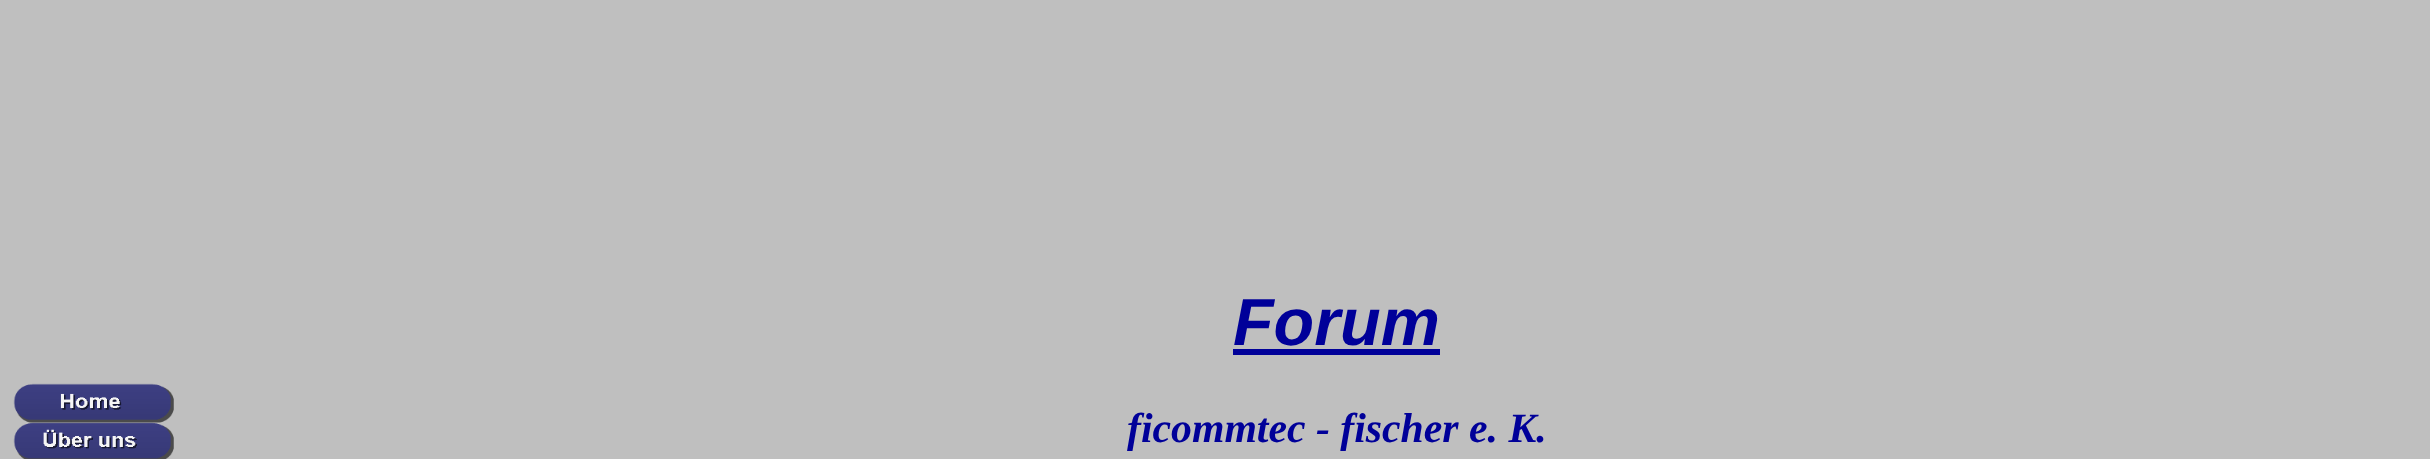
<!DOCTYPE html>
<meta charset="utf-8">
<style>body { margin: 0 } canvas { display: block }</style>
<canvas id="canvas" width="2430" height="459"></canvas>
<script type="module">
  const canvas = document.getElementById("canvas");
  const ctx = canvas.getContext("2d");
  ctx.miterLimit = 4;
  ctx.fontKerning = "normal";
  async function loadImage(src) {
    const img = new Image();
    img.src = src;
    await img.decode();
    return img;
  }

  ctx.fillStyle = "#bfbfbf";
  ctx.fillRect(0, 0, 2430, 459);
  ctx.drawImage(await loadImage("img1.png"), 13, 383, 161, 40);
  ctx.drawImage(await loadImage("img2.png"), 13, 422, 161, 37);
  ctx.font = "italic bold 66.5px Liberation Sans";
  ctx.fillStyle = "#000099";
  ctx.fillText("Forum", 1233, 345);
  ctx.fillRect(1233, 349, 207, 6);
  ctx.font = "italic bold 41.75px Liberation Serif";
  ctx.fillText("ficommtec - fischer e. K.", 1127, 442);
</script>
